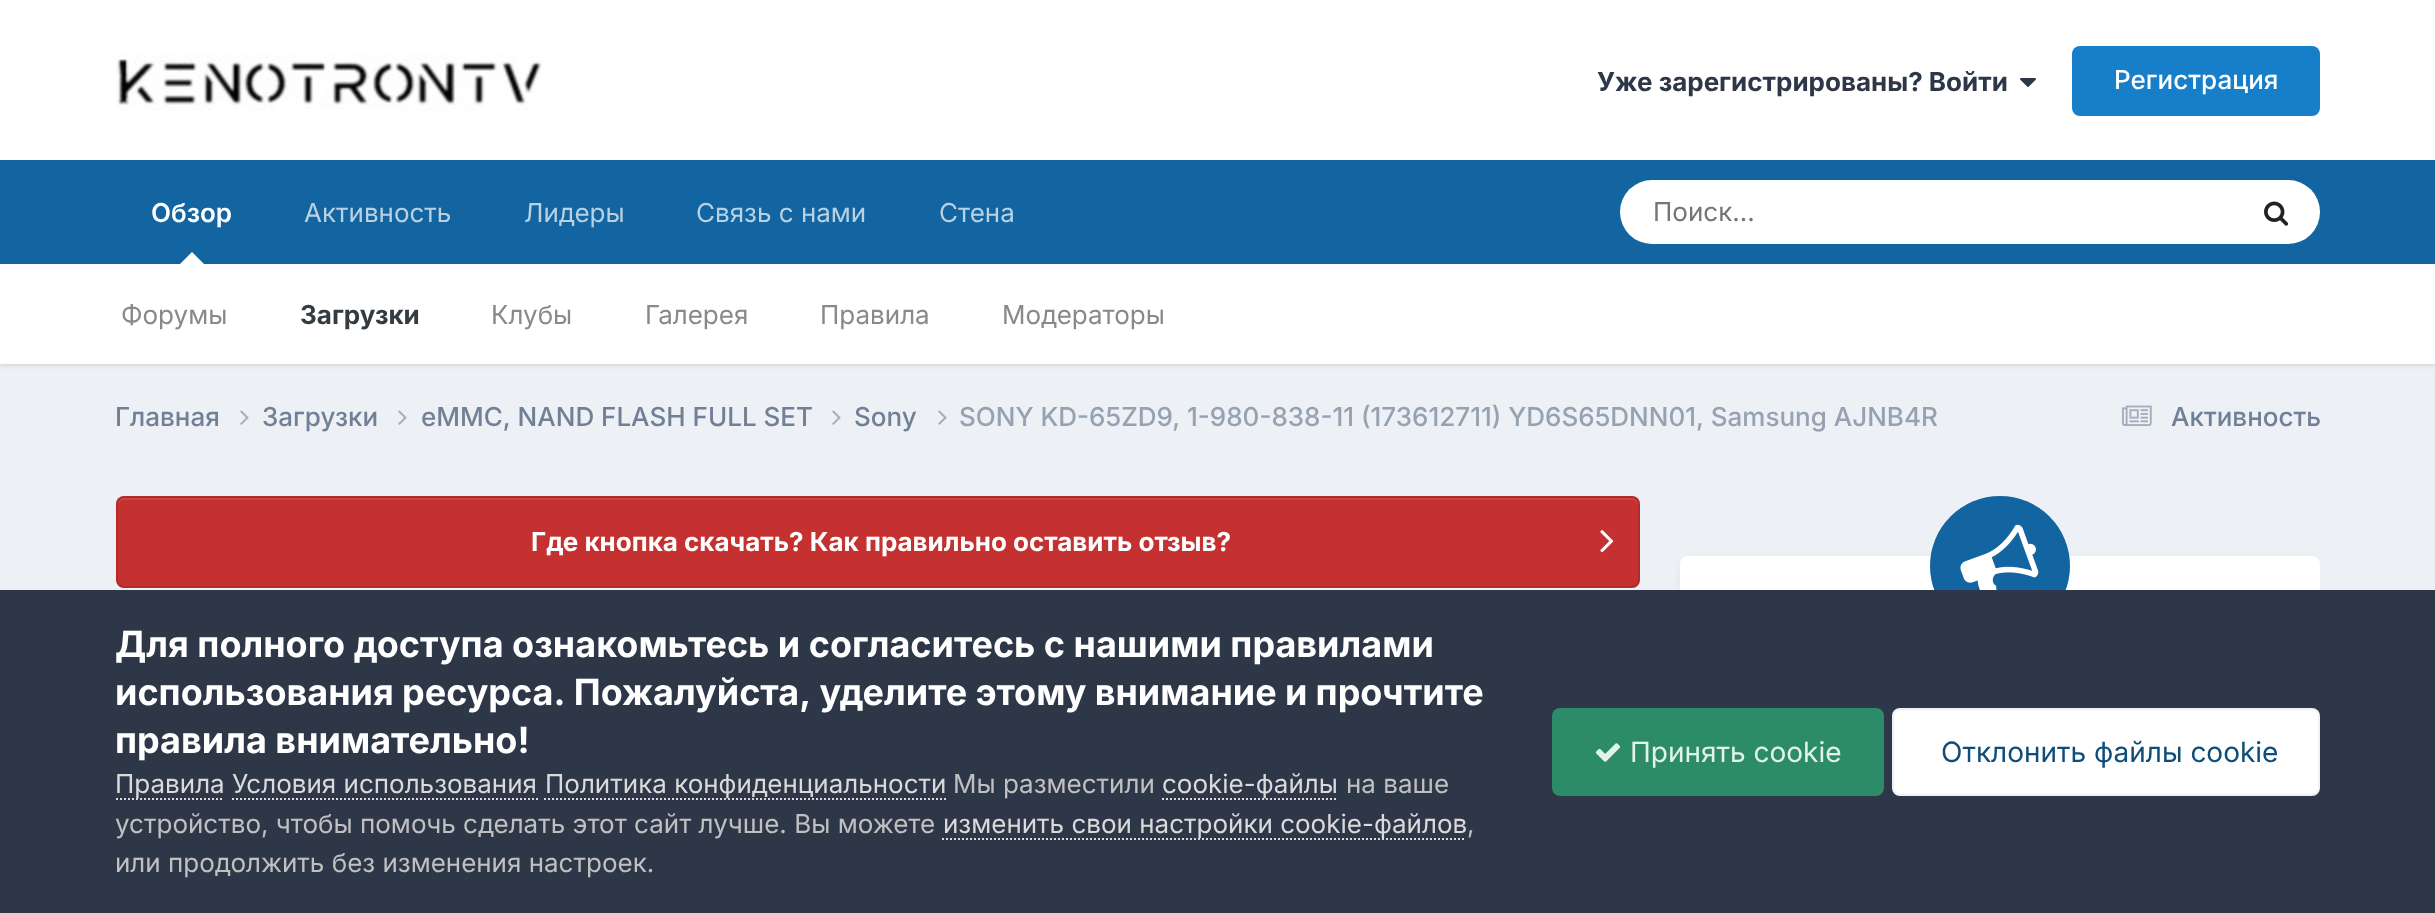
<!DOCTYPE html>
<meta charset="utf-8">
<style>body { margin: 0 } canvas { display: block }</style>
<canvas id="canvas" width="2435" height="913"></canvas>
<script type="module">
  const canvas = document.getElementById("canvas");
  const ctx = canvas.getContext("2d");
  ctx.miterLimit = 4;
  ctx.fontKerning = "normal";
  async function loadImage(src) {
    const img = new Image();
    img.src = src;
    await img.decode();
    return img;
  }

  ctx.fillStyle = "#edf0f4";
  ctx.fillRect(0, 0, 2435, 913);
  ctx.fillStyle = "#ffffff";
  ctx.fillRect(0, 0, 2435, 160);
  ctx.drawImage(await loadImage("img1.png"), 116, 52, 426, 58);
  ctx.font = "bold 26px Inter";
  ctx.fillStyle = "#2d3748";
  ctx.fillText("Уже зарегистрированы? Войти", 1597, 91);
  ctx.drawImage(await loadImage("img2.png"), 2020, 78, 16, 9);
  ctx.fillStyle = "#177ec9";
  ctx.beginPath();
  ctx.roundRect(2072, 46, 248, 70, 8);
  ctx.fill();
  ctx.font = "500 26px Inter";
  ctx.fillStyle = "#ffffff";
  ctx.fillText("Регистрация", 2114, 89);
  ctx.fillStyle = "#1265a1";
  ctx.fillRect(0, 160, 2435, 104);
  ctx.font = "600 26px Inter";
  ctx.fillStyle = "#ffffff";
  ctx.fillText("Обзор", 151, 222);
  ctx.fillStyle = "rgba(0, 0, 0, 0.1)";
  ctx.filter = "blur(2px)";
  ctx.beginPath();
  ctx.rect(0, 266, 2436, 100);
  ctx.fill();
  ctx.filter = "none";
  ctx.fillStyle = "#ffffff";
  ctx.beginPath();
  ctx.moveTo(204, 264);
  ctx.lineTo(180, 264);
  ctx.lineTo(192, 252);
  ctx.closePath();
  ctx.fill();
  ctx.fillRect(0, 264, 2435, 100);
  ctx.font = "26px Inter";
  ctx.fillStyle = "#868a8d";
  ctx.fillText("Форумы", 121, 324);
  ctx.font = "bold 26px Inter";
  ctx.fillStyle = "#353c41";
  ctx.fillText("Загрузки", 300, 324);
  ctx.font = "26px Inter";
  ctx.fillStyle = "#868a8d";
  ctx.fillText("Клубы", 491, 324);
  ctx.fillText("Галерея", 645, 324);
  ctx.fillText("Правила", 820, 324);
  ctx.fillText("Модераторы", 1002, 324);
  ctx.fillStyle = "#b8d1e3";
  ctx.fillText("Активность", 304, 222);
  ctx.fillText("Лидеры", 524, 222);
  ctx.fillText("Связь с нами", 696, 222);
  ctx.fillText("Стена", 939, 222);
  ctx.fillStyle = "#ffffff";
  ctx.beginPath();
  ctx.roundRect(1620, 180, 700, 64, 32);
  ctx.fill();
  ctx.fillStyle = "#757575";
  ctx.fillText("Поиск...", 1653, 221);
  ctx.drawImage(await loadImage("img3.png"), 2264, 201, 25, 25);
  ctx.font = "500 26px Inter";
  ctx.fillStyle = "#718096";
  ctx.fillText("Главная", 115, 426);
  ctx.drawImage(await loadImage("img4.png"), 240, 410, 9, 15);
  ctx.fillText("Загрузки", 262, 426);
  ctx.drawImage(await loadImage("img4.png"), 398, 410, 9, 15);
  ctx.fillText("eMMC, NAND FLASH FULL SET", 421, 426);
  ctx.drawImage(await loadImage("img4.png"), 832, 410, 9, 15);
  ctx.fillText("Sony", 854, 426);
  ctx.drawImage(await loadImage("img4.png"), 938, 410, 9, 15);
  ctx.fillStyle = "#96a2b2";
  ctx.fillText("SONY KD-65ZD9, 1-980-838-11 (173612711) YD6S65DNN01, Samsung AJNB4R", 959, 426);
  ctx.drawImage(await loadImage("img5.png"), 2122, 405, 30, 21);
  ctx.fillStyle = "#718096";
  ctx.fillText("Активность", 2171, 426);
  ctx.fillStyle = "#c53030";
  ctx.beginPath();
  ctx.roundRect(116, 496, 1524, 92, 8);
  ctx.fill();
  ctx.fillStyle = "#cb4545";
  ctx.beginPath();
  ctx.moveTo(124, 500);
  ctx.lineTo(1632, 500);
  ctx.bezierCurveTo(1635, 500, 1638, 503, 1638, 506);
  ctx.bezierCurveTo(1638, 502, 1637, 498, 1632, 498);
  ctx.lineTo(124, 498);
  ctx.bezierCurveTo(119, 498, 118, 502, 118, 506);
  ctx.bezierCurveTo(118, 503, 121, 500, 124, 500);
  ctx.closePath();
  ctx.fill();
  ctx.beginPath();
  ctx.roundRect(117, 497, 1522, 90, 7);
  ctx.strokeStyle = "rgba(0, 0, 0, 0.1)";
  ctx.lineWidth = 2;
  ctx.stroke();
  ctx.font = "bold 26px Inter";
  ctx.fillStyle = "#ffffff";
  ctx.fillText("Где кнопка скачать? Как правильно оставить отзыв?", 531, 551);
  ctx.drawImage(await loadImage("img6.png"), 1600, 530, 14, 23);
  ctx.save();
  ctx.beginPath();
  ctx.rect(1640, 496, 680, 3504);
  ctx.clip();
  ctx.fillStyle = "rgba(45, 55, 72, 0.1)";
  ctx.filter = "blur(4px)";
  ctx.beginPath();
  ctx.roundRect(1682, 562, 636, 294, 6);
  ctx.fill();
  ctx.filter = "none";
  ctx.restore();
  ctx.beginPath();
  ctx.roundRect(1680, 556, 640, 298, 8);
  ctx.fill();
  ctx.fillStyle = "#1265a1";
  ctx.beginPath();
  ctx.arc(2000, 566, 70, 0, Math.PI * 2);
  ctx.fill();
  ctx.drawImage(await loadImage("img7.png"), 1960, 524, 79, 66);
  ctx.fillStyle = "#2d3748";
  ctx.fillRect(0, 590, 2435, 323);
  ctx.font = "bold 36px Inter";
  ctx.fillStyle = "#ffffff";
  ctx.fillText("Для полного доступа ознакомьтесь и согласитесь с нашими правилами", 115, 657);
  ctx.wordSpacing = "-0.25px";
  ctx.fillText("использования ресурса. Пожалуйста, уделите этому внимание и прочтите", 115, 705);
  ctx.wordSpacing = "0px";
  ctx.fillText("правила внимательно!", 115, 753);
  ctx.beginPath();
  ctx.moveTo(116, 799);
  ctx.lineTo(224, 799);
  ctx.strokeStyle = "#dadada";
  ctx.setLineDash([2, 2]);
  ctx.stroke();
  ctx.font = "26px Inter";
  ctx.fillStyle = "#dadada";
  ctx.fillText("Правила Условия использования", 115, 793);
  ctx.beginPath();
  ctx.moveTo(544, 799);
  ctx.lineTo(946, 799);
  ctx.stroke();
  ctx.fillText("Политика конфиденциальности", 545, 793);
  ctx.fillStyle = "#c0c0c0";
  ctx.fillText("Мы разместили", 953, 793);
  ctx.beginPath();
  ctx.moveTo(1162, 799);
  ctx.lineTo(1338, 799);
  ctx.stroke();
  ctx.fillStyle = "#dadada";
  ctx.fillText("cookie-файлы", 1162, 793);
  ctx.fillStyle = "#c0c0c0";
  ctx.fillText("на ваше", 1346, 793);
  ctx.beginPath();
  ctx.moveTo(232, 799);
  ctx.lineTo(538, 799);
  ctx.stroke();
  ctx.fillText("устройство, чтобы помочь сделать этот сайт лучше. Вы можете", 115, 833);
  ctx.beginPath();
  ctx.moveTo(942, 839);
  ctx.lineTo(1466, 839);
  ctx.stroke();
  ctx.fillStyle = "#dadada";
  ctx.fillText("изменить свои настройки cookie-файлов", 943, 833);
  ctx.fillStyle = "#c0c0c0";
  ctx.fillText(",", 1467, 833);
  ctx.fillText("или продолжить без изменения настроек.", 115, 872);
  ctx.fillStyle = "#2c8c69";
  ctx.beginPath();
  ctx.roundRect(1552, 708, 332, 88, 8);
  ctx.fill();
  ctx.drawImage(await loadImage("img8.png"), 1595, 743, 26, 19);
  ctx.font = "28px Inter";
  ctx.fillStyle = "#e3f3ec";
  ctx.fillText("Принять cookie", 1630, 762);
  ctx.fillStyle = "#ffffff";
  ctx.beginPath();
  ctx.roundRect(1892, 708, 428, 88, 8);
  ctx.fill();
  ctx.beginPath();
  ctx.roundRect(1893, 709, 426, 86, 7);
  ctx.strokeStyle = "rgba(14, 76, 121, 0.07)";
  ctx.setLineDash([]);
  ctx.stroke();
  ctx.fillStyle = "#0e4c79";
  ctx.fillText("Отклонить файлы сookie", 1941, 762);
</script>
